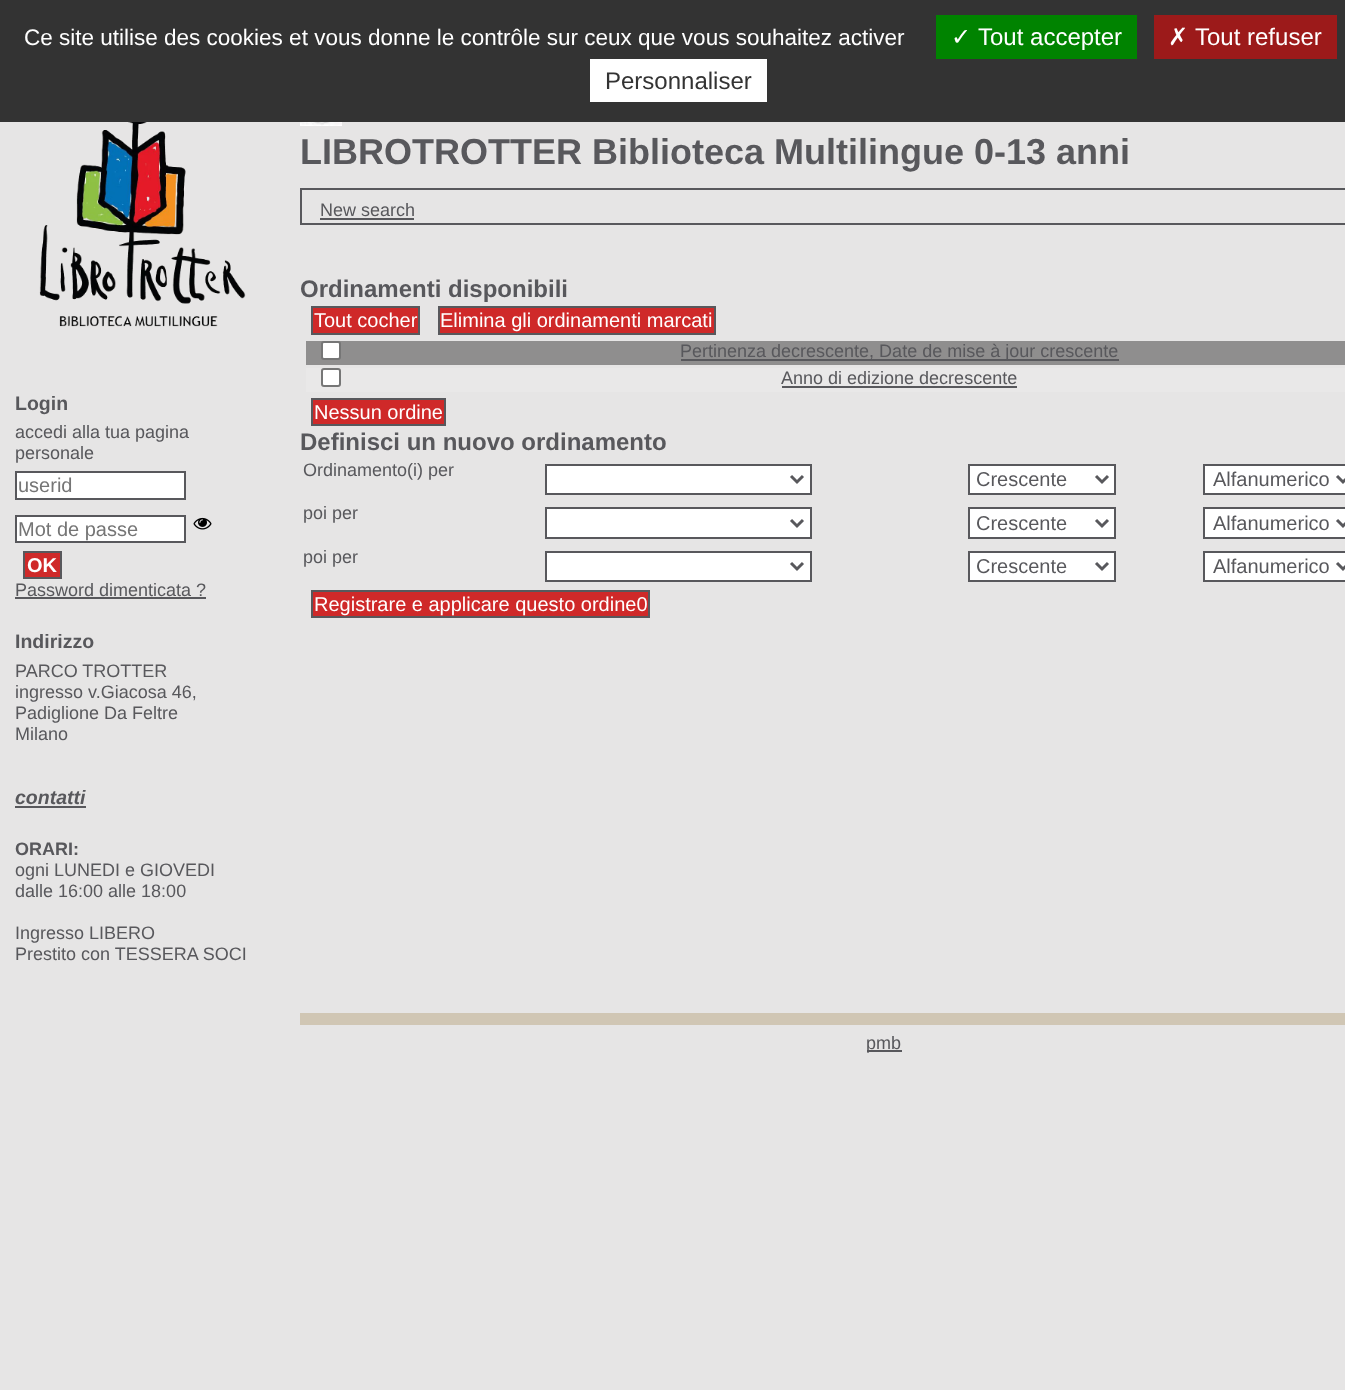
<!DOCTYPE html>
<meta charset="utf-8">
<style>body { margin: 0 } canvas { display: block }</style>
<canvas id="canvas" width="1345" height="1390"></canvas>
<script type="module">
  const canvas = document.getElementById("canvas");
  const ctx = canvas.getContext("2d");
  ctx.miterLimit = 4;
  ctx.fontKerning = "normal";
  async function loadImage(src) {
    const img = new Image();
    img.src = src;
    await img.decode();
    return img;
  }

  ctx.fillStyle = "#e6e5e5";
  ctx.fillRect(0, 0, 1345, 1390);
  ctx.fillStyle = "#333333";
  ctx.fillRect(0, 0, 1345, 122);
  ctx.font = "22.5px Liberation Sans";
  ctx.fillStyle = "#ffffff";
  ctx.fillText("Ce site utilise des cookies et vous donne le contrôle sur ceux que vous souhaitez activer", 24, 45);
  ctx.fillStyle = "#008300";
  ctx.fillRect(936, 15, 201, 44);
  ctx.font = "24px DejaVu Sans";
  ctx.fillStyle = "#ffffff";
  ctx.fillText("✓", 951, 45);
  ctx.font = "24px Liberation Sans";
  ctx.fillText("Tout accepter", 978, 45);
  ctx.fillStyle = "#9c1a1a";
  ctx.fillRect(1154, 15, 183, 44);
  ctx.font = "24px DejaVu Sans";
  ctx.fillStyle = "#ffffff";
  ctx.fillText("✗", 1168, 45);
  ctx.font = "24px Liberation Sans";
  ctx.fillText("Tout refuser", 1195, 45);
  ctx.fillRect(590, 59, 177, 43);
  ctx.fillStyle = "#333333";
  ctx.fillText("Personnaliser", 605, 89);
  ctx.drawImage(await loadImage("img1.png"), 39, 122, 207, 205);
  ctx.font = "bold 19.5px Liberation Sans";
  ctx.fillStyle = "#58585c";
  ctx.fillText("Login", 15, 410);
  ctx.font = "18px Liberation Sans";
  ctx.fillText("accedi alla tua pagina", 15, 438);
  ctx.fillText("personale", 15, 459);
  ctx.fillStyle = "#ffffff";
  ctx.beginPath();
  ctx.rect(16, 472, 169, 27);
  ctx.fill();
  ctx.strokeStyle = "#58585c";
  ctx.lineWidth = 2;
  ctx.stroke();
  ctx.font = "20px Liberation Sans";
  ctx.fillStyle = "#757575";
  ctx.fillText("userid", 18, 492);
  ctx.fillStyle = "#ffffff";
  ctx.beginPath();
  ctx.rect(16, 516, 169, 26);
  ctx.fill();
  ctx.stroke();
  ctx.fillStyle = "#757575";
  ctx.fillText("Mot de passe", 18, 536);
  ctx.drawImage(await loadImage("img2.png"), 193, 517, 19, 13);
  ctx.fillStyle = "#cf2929";
  ctx.beginPath();
  ctx.rect(24, 552, 37, 26);
  ctx.fill();
  ctx.stroke();
  ctx.font = "bold 20px Liberation Sans";
  ctx.fillStyle = "#ffffff";
  ctx.fillText("OK", 27, 572);
  ctx.font = "18px Liberation Sans";
  ctx.fillStyle = "#58585c";
  ctx.fillText("Password dimenticata ?", 15, 596);
  ctx.fillRect(15, 597, 191, 2);
  ctx.font = "bold 19.5px Liberation Sans";
  ctx.fillText("Indirizzo", 15, 648);
  ctx.font = "18px Liberation Sans";
  ctx.fillText("PARCO TROTTER", 15, 677);
  ctx.fillText("ingresso v.Giacosa 46,", 15, 698);
  ctx.fillText("Padiglione Da Feltre", 15, 719);
  ctx.fillText("Milano", 15, 740);
  ctx.font = "italic bold 19.5px Liberation Sans";
  ctx.fillText("contatti", 15, 804);
  ctx.fillRect(15, 806, 71, 2);
  ctx.font = "bold 18px Liberation Sans";
  ctx.fillText("ORARI:", 15, 855);
  ctx.font = "18px Liberation Sans";
  ctx.fillText("ogni LUNEDI e GIOVEDI", 15, 876);
  ctx.fillText("dalle 16:00 alle 18:00", 15, 897);
  ctx.fillText("Ingresso LIBERO", 15, 939);
  ctx.fillText("Prestito con TESSERA SOCI", 15, 960);
  ctx.drawImage(await loadImage("img3.png"), 300, 122, 42, 4);
  ctx.font = "bold 36px Liberation Sans";
  ctx.fillText("LIBROTROTTER Biblioteca Multilingue 0-13 anni", 300, 164);
  ctx.strokeRect(301, 189, 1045, 35);
  ctx.font = "18px Liberation Sans";
  ctx.fillText("New search", 320, 216);
  ctx.fillRect(320, 218, 94, 2);
  ctx.font = "bold 24px Liberation Sans";
  ctx.fillText("Ordinamenti disponibili", 300, 297);
  ctx.fillStyle = "#cf2929";
  ctx.beginPath();
  ctx.rect(312, 307, 107, 27);
  ctx.fill();
  ctx.stroke();
  ctx.font = "20px Liberation Sans";
  ctx.fillStyle = "#ffffff";
  ctx.fillText("Tout cocher", 314, 327);
  ctx.fillStyle = "#cf2929";
  ctx.beginPath();
  ctx.rect(439, 307, 276, 27);
  ctx.fill();
  ctx.stroke();
  ctx.fillStyle = "#ffffff";
  ctx.fillText("Elimina gli ordinamenti marcati", 440, 327);
  ctx.fillStyle = "#8f8e8e";
  ctx.fillRect(306, 341, 1039, 24);
  ctx.fillStyle = "#ffffff";
  ctx.beginPath();
  ctx.roundRect(322, 342, 18, 17, 2);
  ctx.fill();
  ctx.strokeStyle = "#767676";
  ctx.stroke();
  ctx.fillStyle = "#58585c";
  ctx.fillRect(681, 359, 438, 2);
  ctx.font = "18px Liberation Sans";
  ctx.fillText("Pertinenza decrescente, Date de mise à jour crescente", 680, 357);
  ctx.fillStyle = "#e9e8e8";
  ctx.fillRect(306, 368, 1039, 24);
  ctx.fillStyle = "#ffffff";
  ctx.beginPath();
  ctx.roundRect(322, 369, 18, 17, 2);
  ctx.fill();
  ctx.stroke();
  ctx.fillStyle = "#58585c";
  ctx.fillText("Anno di edizione decrescente", 781, 384);
  ctx.fillRect(782, 386, 235, 2);
  ctx.fillStyle = "#cf2929";
  ctx.beginPath();
  ctx.rect(312, 399, 133, 26);
  ctx.fill();
  ctx.strokeStyle = "#58585c";
  ctx.stroke();
  ctx.font = "20px Liberation Sans";
  ctx.fillStyle = "#ffffff";
  ctx.fillText("Nessun ordine", 314, 419);
  ctx.font = "bold 24px Liberation Sans";
  ctx.fillStyle = "#58585c";
  ctx.fillText("Definisci un nuovo ordinamento", 300, 450);
  ctx.font = "18px Liberation Sans";
  ctx.fillText("Ordinamento(i) per", 303, 476);
  ctx.fillStyle = "#ffffff";
  ctx.beginPath();
  ctx.rect(546, 465, 265, 29);
  ctx.fill();
  ctx.stroke();
  ctx.beginPath();
  ctx.moveTo(791, 476);
  ctx.lineTo(797, 482);
  ctx.lineTo(803, 476);
  ctx.lineWidth = 3;
  ctx.stroke();
  ctx.beginPath();
  ctx.rect(969, 465, 146, 29);
  ctx.fill();
  ctx.lineWidth = 2;
  ctx.stroke();
  ctx.beginPath();
  ctx.moveTo(1096, 476);
  ctx.lineTo(1102, 482);
  ctx.lineTo(1108, 476);
  ctx.lineWidth = 3;
  ctx.stroke();
  ctx.font = "20px Liberation Sans";
  ctx.fillStyle = "#58585c";
  ctx.fillText("Crescente", 976, 486);
  ctx.fillStyle = "#ffffff";
  ctx.beginPath();
  ctx.rect(1204, 465, 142, 29);
  ctx.fill();
  ctx.lineWidth = 2;
  ctx.stroke();
  ctx.beginPath();
  ctx.moveTo(1337, 476);
  ctx.lineTo(1343, 482);
  ctx.lineTo(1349, 476);
  ctx.lineWidth = 3;
  ctx.stroke();
  ctx.fillStyle = "#58585c";
  ctx.fillText("Alfanumerico", 1213, 486);
  ctx.font = "18px Liberation Sans";
  ctx.fillText("poi per", 303, 519);
  ctx.fillStyle = "#ffffff";
  ctx.beginPath();
  ctx.rect(546, 508, 265, 30);
  ctx.fill();
  ctx.lineWidth = 2;
  ctx.stroke();
  ctx.beginPath();
  ctx.moveTo(791, 520);
  ctx.lineTo(797, 526);
  ctx.lineTo(803, 520);
  ctx.lineWidth = 3;
  ctx.stroke();
  ctx.beginPath();
  ctx.rect(969, 508, 146, 30);
  ctx.fill();
  ctx.lineWidth = 2;
  ctx.stroke();
  ctx.beginPath();
  ctx.moveTo(1096, 520);
  ctx.lineTo(1102, 526);
  ctx.lineTo(1108, 520);
  ctx.lineWidth = 3;
  ctx.stroke();
  ctx.font = "20px Liberation Sans";
  ctx.fillStyle = "#58585c";
  ctx.fillText("Crescente", 976, 530);
  ctx.fillStyle = "#ffffff";
  ctx.beginPath();
  ctx.rect(1204, 508, 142, 30);
  ctx.fill();
  ctx.lineWidth = 2;
  ctx.stroke();
  ctx.beginPath();
  ctx.moveTo(1337, 520);
  ctx.lineTo(1343, 526);
  ctx.lineTo(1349, 520);
  ctx.lineWidth = 3;
  ctx.stroke();
  ctx.fillStyle = "#58585c";
  ctx.fillText("Alfanumerico", 1213, 530);
  ctx.font = "18px Liberation Sans";
  ctx.fillText("poi per", 303, 563);
  ctx.fillStyle = "#ffffff";
  ctx.beginPath();
  ctx.rect(546, 552, 265, 29);
  ctx.fill();
  ctx.lineWidth = 2;
  ctx.stroke();
  ctx.beginPath();
  ctx.moveTo(791, 563);
  ctx.lineTo(797, 569);
  ctx.lineTo(803, 563);
  ctx.lineWidth = 3;
  ctx.stroke();
  ctx.beginPath();
  ctx.rect(969, 552, 146, 29);
  ctx.fill();
  ctx.lineWidth = 2;
  ctx.stroke();
  ctx.beginPath();
  ctx.moveTo(1096, 563);
  ctx.lineTo(1102, 569);
  ctx.lineTo(1108, 563);
  ctx.lineWidth = 3;
  ctx.stroke();
  ctx.font = "20px Liberation Sans";
  ctx.fillStyle = "#58585c";
  ctx.fillText("Crescente", 976, 573);
  ctx.fillStyle = "#ffffff";
  ctx.beginPath();
  ctx.rect(1204, 552, 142, 29);
  ctx.fill();
  ctx.lineWidth = 2;
  ctx.stroke();
  ctx.beginPath();
  ctx.moveTo(1337, 563);
  ctx.lineTo(1343, 569);
  ctx.lineTo(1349, 563);
  ctx.lineWidth = 3;
  ctx.stroke();
  ctx.fillStyle = "#58585c";
  ctx.fillText("Alfanumerico", 1213, 573);
  ctx.fillStyle = "#cf2929";
  ctx.beginPath();
  ctx.rect(312, 591, 337, 26);
  ctx.fill();
  ctx.lineWidth = 2;
  ctx.stroke();
  ctx.fillStyle = "#ffffff";
  ctx.fillText("Registrare e applicare questo ordine0", 314, 611);
  ctx.fillStyle = "#d0c6b4";
  ctx.fillRect(300, 1013, 1045, 12);
  ctx.fillStyle = "#58585c";
  ctx.fillRect(867, 1050, 35, 2);
  ctx.font = "18px Liberation Sans";
  ctx.fillText("pmb", 866, 1049);
</script>
